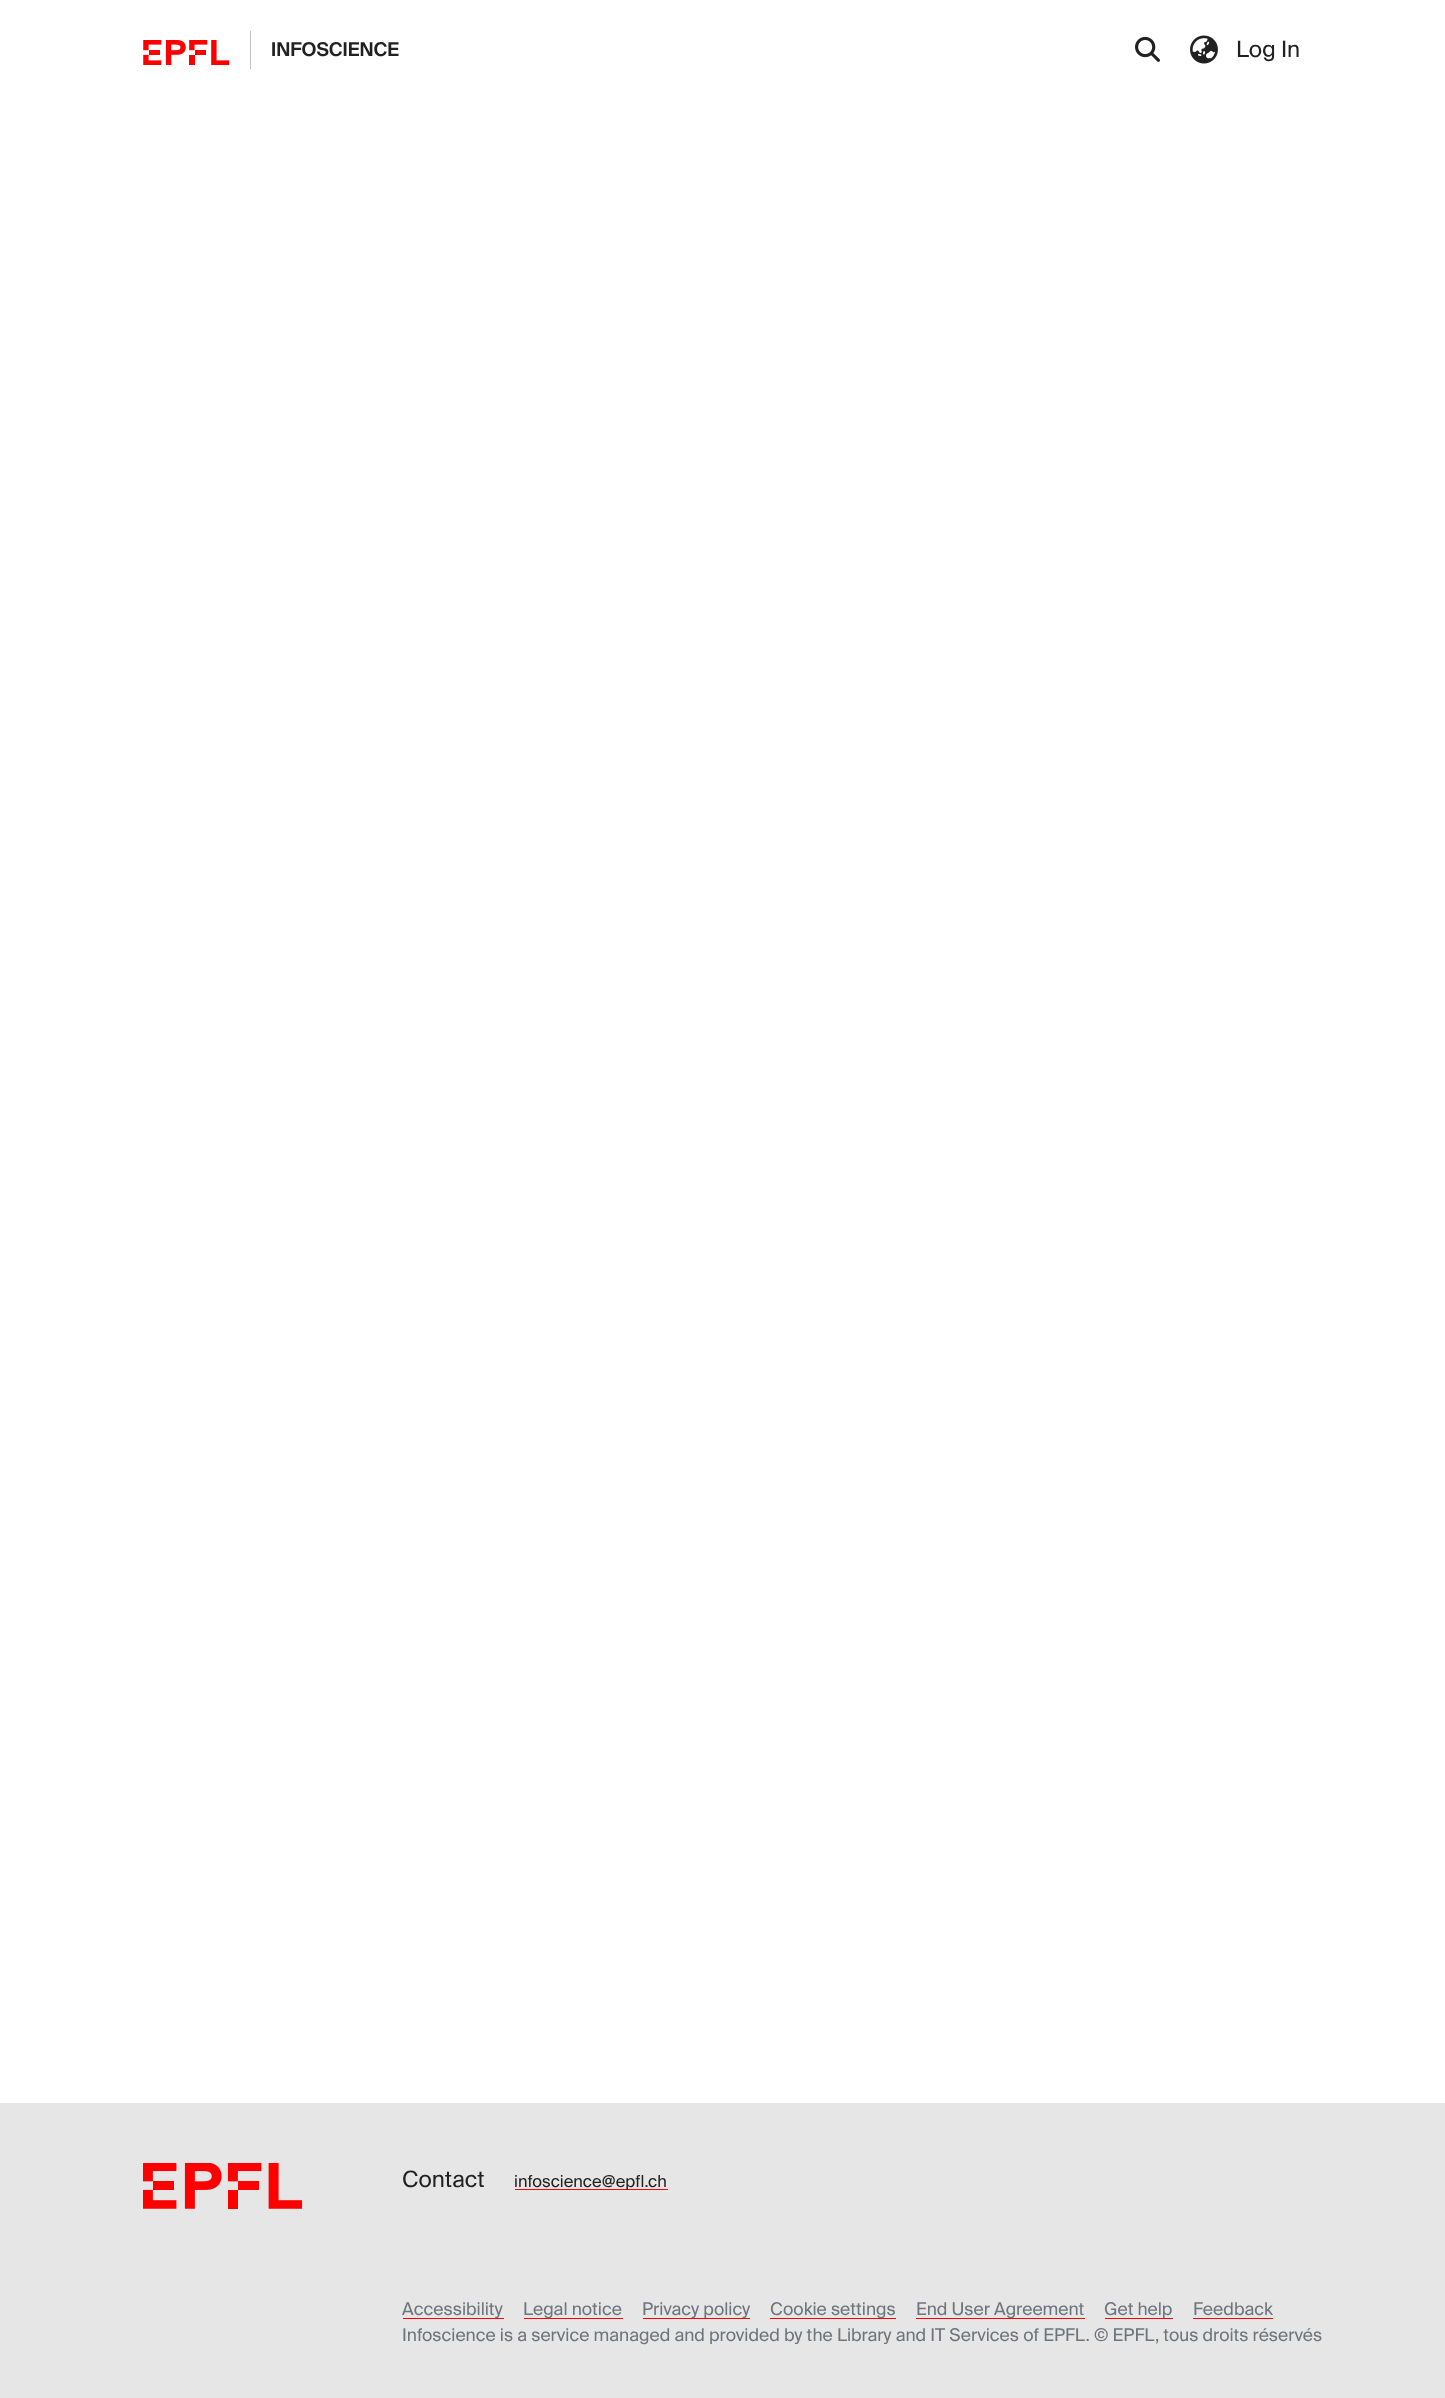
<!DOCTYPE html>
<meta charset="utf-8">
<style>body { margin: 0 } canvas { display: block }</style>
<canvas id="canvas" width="1445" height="2398"></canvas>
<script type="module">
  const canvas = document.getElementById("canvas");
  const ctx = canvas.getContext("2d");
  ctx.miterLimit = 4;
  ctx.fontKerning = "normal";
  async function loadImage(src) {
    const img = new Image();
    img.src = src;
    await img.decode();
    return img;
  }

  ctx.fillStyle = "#ffffff";
  ctx.fillRect(0, 0, 1445, 2398);
  ctx.fillStyle = "#c1c1c1";
  ctx.fillRect(250, 31, 1, 38);
  ctx.drawImage(await loadImage("img1.png"), 143, 40, 87, 25);
  ctx.font = "600 19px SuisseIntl";
  ctx.fillStyle = "#212121";
  ctx.fillText("INFOSCIENCE", 271, 56);
  ctx.drawImage(await loadImage("img2.png"), 1135, 36, 25, 26);
  ctx.drawImage(await loadImage("img3.png"), 1190, 35, 28, 29);
  ctx.font = "22.5px SuisseIntl";
  ctx.fillText("Log In", 1236, 57);
  ctx.fillStyle = "#e6e6e6";
  ctx.fillRect(0, 2103, 1445, 295);
  ctx.drawImage(await loadImage("img4.png"), 143, 2163, 160, 46);
  ctx.fillStyle = "#212121";
  ctx.fillText("Contact", 402, 2187);
  ctx.fillStyle = "#ff0000";
  ctx.fillRect(515, 2189, 153, 1);
  ctx.font = "16.5px SuisseIntl";
  ctx.fillStyle = "#212121";
  ctx.fillText("infoscience@epfl.ch", 514, 2187);
  ctx.fillStyle = "#ff0000";
  ctx.fillRect(403, 2318, 101, 1);
  ctx.font = "17.5px SuisseIntl";
  ctx.fillStyle = "#6c757d";
  ctx.fillText("Accessibility", 402, 2315);
  ctx.fillStyle = "#ff0000";
  ctx.fillRect(524, 2318, 99, 1);
  ctx.fillStyle = "#6c757d";
  ctx.fillText("Legal notice", 523, 2315);
  ctx.fillStyle = "#ff0000";
  ctx.fillRect(643, 2318, 107, 1);
  ctx.fillStyle = "#6c757d";
  ctx.fillText("Privacy policy", 642, 2315);
  ctx.fillStyle = "#ff0000";
  ctx.fillRect(770, 2318, 126, 1);
  ctx.fillStyle = "#6c757d";
  ctx.fillText("Cookie settings", 770, 2315);
  ctx.fillStyle = "#ff0000";
  ctx.fillRect(916, 2318, 169, 1);
  ctx.fillStyle = "#6c757d";
  ctx.fillText("End User Agreement", 916, 2315);
  ctx.fillStyle = "#ff0000";
  ctx.fillRect(1105, 2318, 68, 1);
  ctx.fillStyle = "#6c757d";
  ctx.fillText("Get help", 1104, 2315);
  ctx.fillText("Feedback", 1193, 2315);
  ctx.fillStyle = "#ff0000";
  ctx.fillRect(1193, 2318, 80, 1);
  ctx.fillStyle = "#6c757d";
  ctx.fillText("Infoscience is a service managed and provided by the Library and IT Services of EPFL. © EPFL, tous droits réservés", 402, 2341);
</script>
